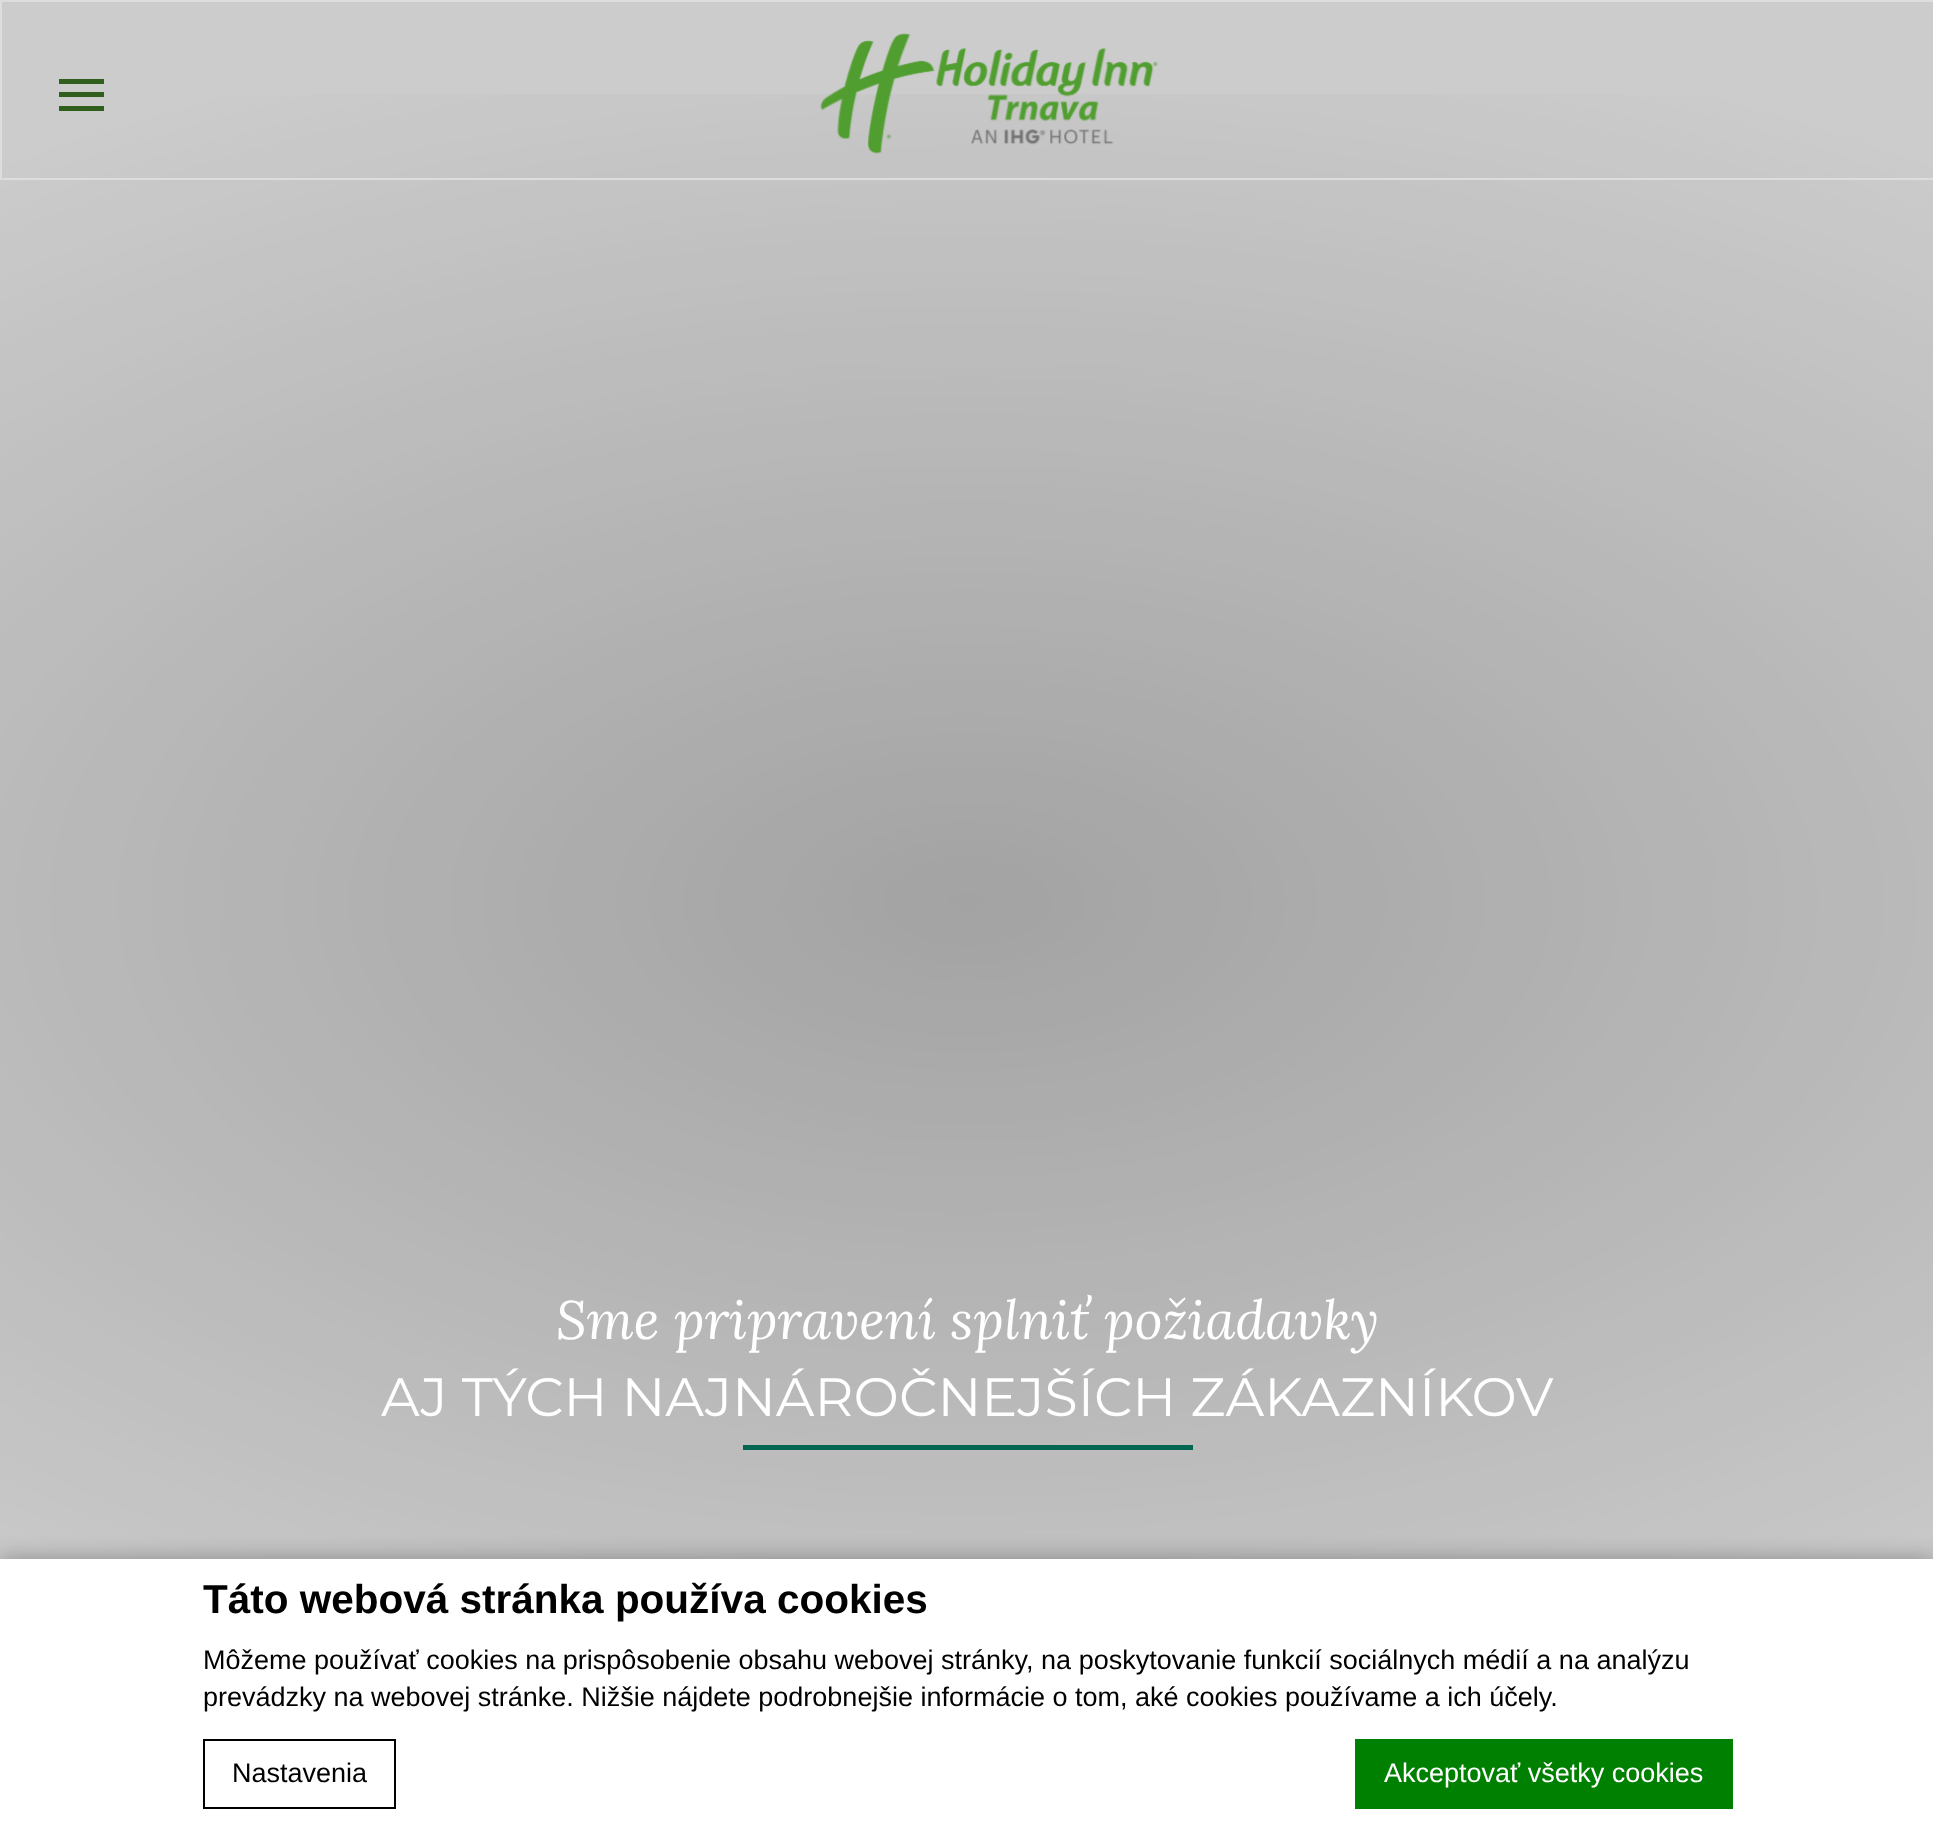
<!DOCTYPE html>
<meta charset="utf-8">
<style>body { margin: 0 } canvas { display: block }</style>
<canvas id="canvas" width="1933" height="1830"></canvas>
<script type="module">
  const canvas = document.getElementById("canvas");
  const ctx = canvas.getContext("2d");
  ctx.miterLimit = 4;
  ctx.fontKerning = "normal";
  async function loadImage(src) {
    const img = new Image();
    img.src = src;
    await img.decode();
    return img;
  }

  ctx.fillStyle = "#cccccc";
  ctx.fillRect(0, 0, 1933, 1830);
  ctx.drawImage(await loadImage("img2.png"), 0, 94, 1933, 1465);
  ctx.strokeStyle = "#dddddd";
  ctx.lineWidth = 2;
  ctx.strokeRect(1, 1, 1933, 178);
  ctx.fillStyle = "#305e1c";
  ctx.fillRect(59, 92, 45, 5);
  ctx.fillRect(59, 79, 45, 5);
  ctx.fillRect(59, 106, 45, 5);
  ctx.drawImage(await loadImage("img1.png"), 820, 33, 338, 121);
  ctx.font = "italic 54px Lora";
  ctx.fillStyle = "#ffffff";
  ctx.fillText("Sme pripravení splniť požiadavky", 556, 1339);
  ctx.font = "54px Montserrat";
  ctx.fillText("AJ TÝCH NAJNÁROČNEJŠÍCH ZÁKAZNÍKOV", 381, 1416);
  ctx.fillStyle = "#006650";
  ctx.fillRect(743, 1445, 450, 5);
  ctx.fillStyle = "rgba(0, 0, 0, 0.3)";
  ctx.filter = "blur(11px)";
  ctx.beginPath();
  ctx.rect(0, 1559, 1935, 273);
  ctx.fill();
  ctx.filter = "none";
  ctx.fillStyle = "#ffffff";
  ctx.fillRect(0, 1559, 1933, 271);
  ctx.font = "bold 40.5px Liberation Sans";
  ctx.fillStyle = "#000000";
  ctx.fillText("Táto webová stránka používa cookies", 203, 1613);
  ctx.font = "27px Liberation Sans";
  ctx.fillText("Môžeme používať cookies na prispôsobenie obsahu webovej stránky, na poskytovanie funkcií sociálnych médií a na analýzu", 203, 1669);
  ctx.fillText("prevádzky na webovej stránke. Nižšie nájdete podrobnejšie informácie o tom, aké cookies používame a ich účely.", 203, 1706);
  ctx.strokeStyle = "#000000";
  ctx.strokeRect(204, 1740, 191, 68);
  ctx.fillText("Nastavenia", 232, 1782);
  ctx.fillStyle = "#008000";
  ctx.fillRect(1355, 1739, 378, 70);
  ctx.fillStyle = "#ffffff";
  ctx.fillText("Akceptovať všetky cookies", 1384, 1782);
</script>
